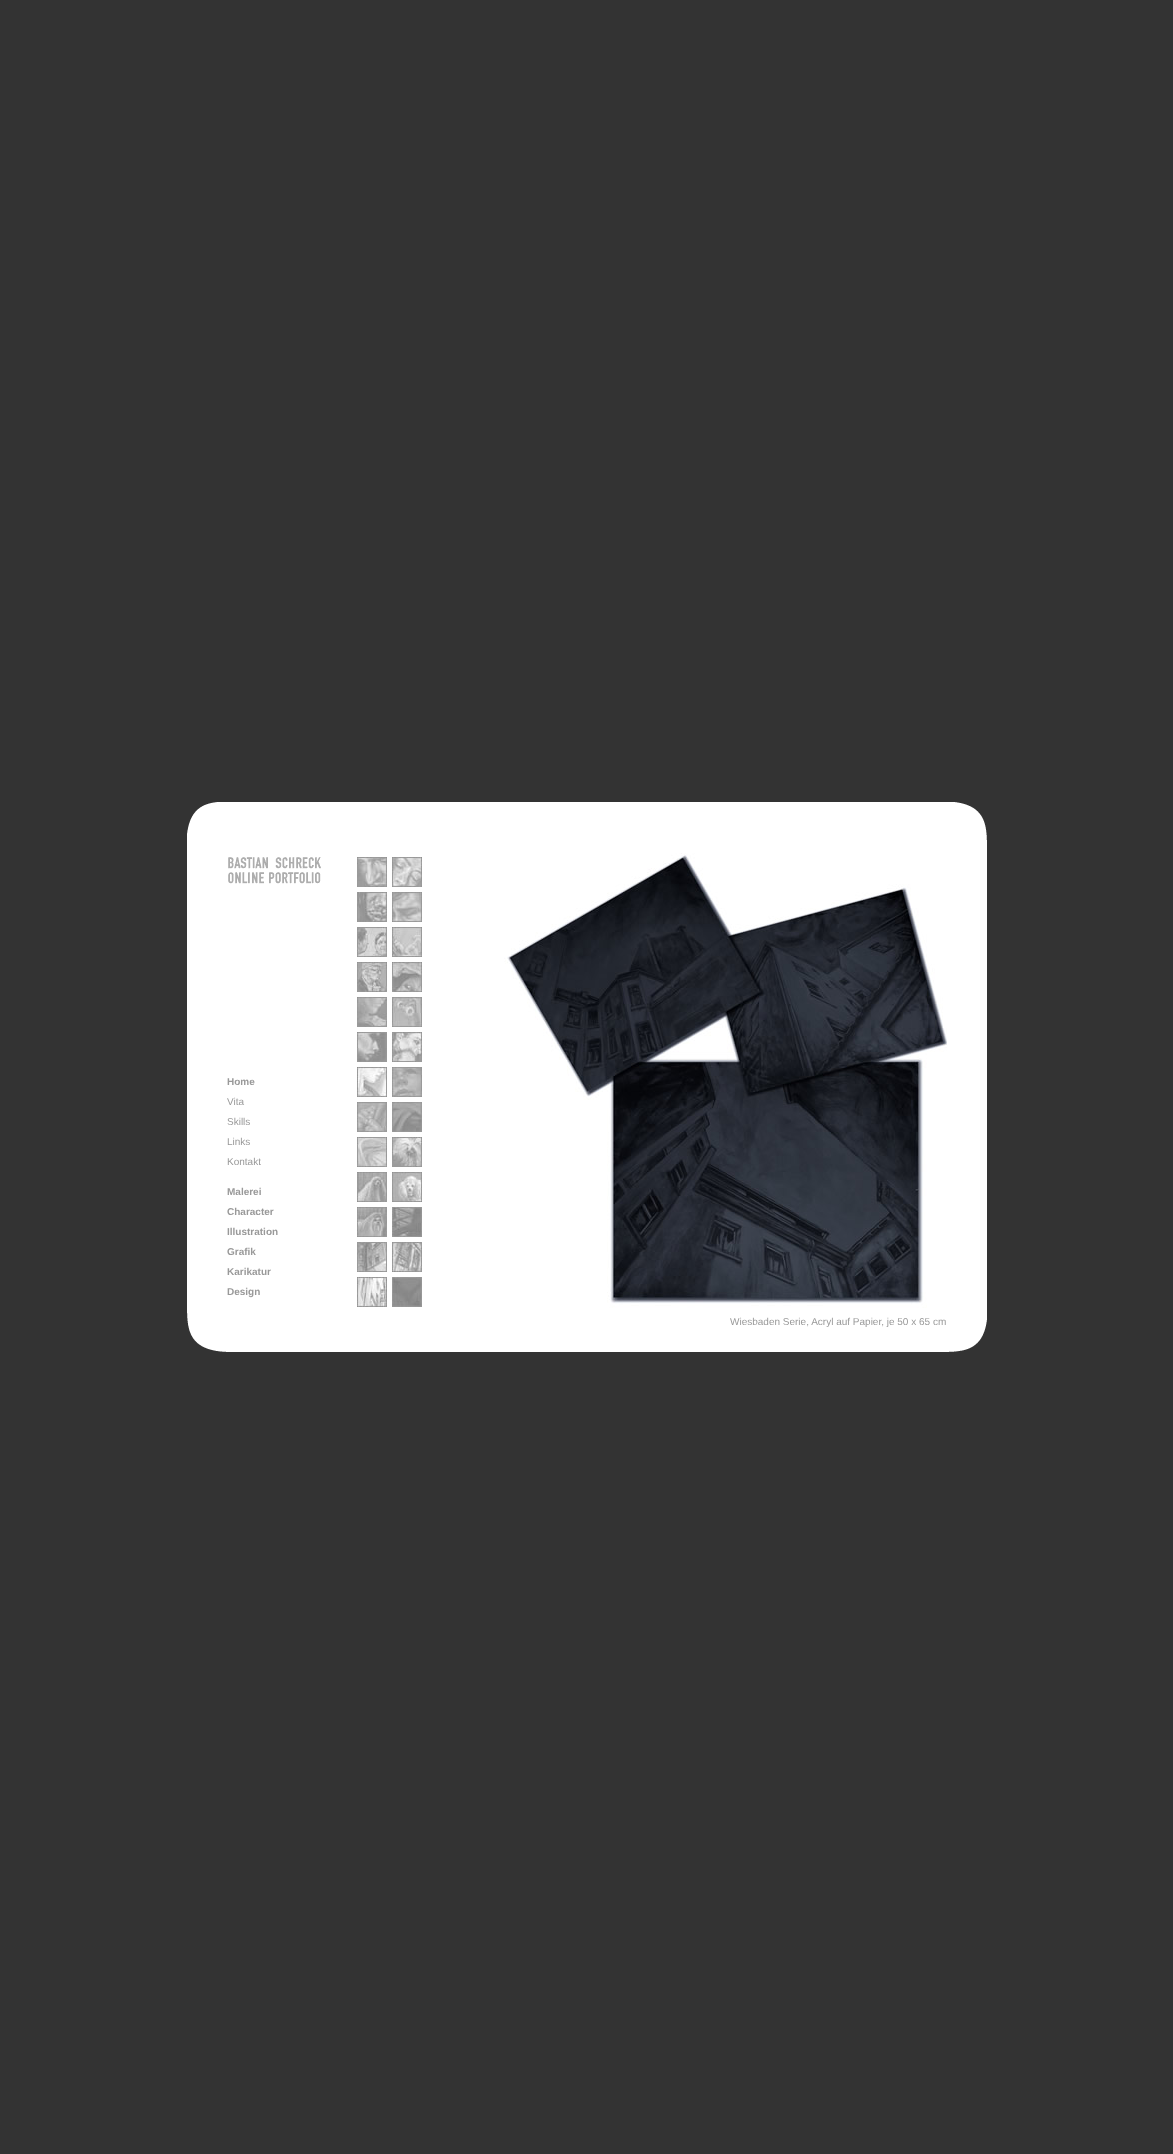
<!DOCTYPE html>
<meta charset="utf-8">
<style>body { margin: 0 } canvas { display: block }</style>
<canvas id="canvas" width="1173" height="2154"></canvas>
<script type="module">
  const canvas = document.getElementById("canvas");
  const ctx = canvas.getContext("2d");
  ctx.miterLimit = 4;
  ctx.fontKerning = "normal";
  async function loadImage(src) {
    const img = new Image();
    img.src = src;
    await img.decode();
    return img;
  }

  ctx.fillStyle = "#333333";
  ctx.fillRect(0, 0, 1173, 2154);
  ctx.fillStyle = "#ffffff";
  ctx.fillRect(187, 802, 800, 550);
  ctx.drawImage(await loadImage("img1.png"), 187, 802, 30, 32);
  ctx.drawImage(await loadImage("img2.png"), 955, 802, 32, 38);
  ctx.drawImage(await loadImage("img3.png"), 228, 857, 93, 27);
  ctx.font = "bold 10px Liberation Sans";
  ctx.fillStyle = "#999999";
  ctx.fillText("Home", 227, 1085);
  ctx.font = "10px Liberation Sans";
  ctx.fillText("Vita", 227, 1105);
  ctx.fillText("Skills", 227, 1125);
  ctx.fillText("Links", 227, 1145);
  ctx.fillText("Kontakt", 227, 1165);
  ctx.font = "bold 10px Liberation Sans";
  ctx.fillText("Malerei", 227, 1195);
  ctx.fillText("Character", 227, 1215);
  ctx.fillText("Illustration", 227, 1235);
  ctx.fillText("Grafik", 227, 1255);
  ctx.fillText("Karikatur", 227, 1275);
  ctx.fillText("Design", 227, 1295);
  ctx.drawImage(await loadImage("img4.png"), 357, 857, 30, 30);
  ctx.drawImage(await loadImage("img5.png"), 392, 857, 30, 30);
  ctx.drawImage(await loadImage("img6.png"), 357, 892, 30, 30);
  ctx.drawImage(await loadImage("img7.png"), 392, 892, 30, 30);
  ctx.drawImage(await loadImage("img8.png"), 357, 927, 30, 30);
  ctx.drawImage(await loadImage("img9.png"), 392, 927, 30, 30);
  ctx.drawImage(await loadImage("img10.png"), 357, 962, 30, 30);
  ctx.drawImage(await loadImage("img11.png"), 392, 962, 30, 30);
  ctx.drawImage(await loadImage("img12.png"), 357, 997, 30, 30);
  ctx.drawImage(await loadImage("img13.png"), 392, 997, 30, 30);
  ctx.drawImage(await loadImage("img14.png"), 357, 1032, 30, 30);
  ctx.drawImage(await loadImage("img15.png"), 392, 1032, 30, 30);
  ctx.drawImage(await loadImage("img16.png"), 357, 1067, 30, 30);
  ctx.drawImage(await loadImage("img17.png"), 392, 1067, 30, 30);
  ctx.drawImage(await loadImage("img18.png"), 357, 1102, 30, 30);
  ctx.drawImage(await loadImage("img19.png"), 392, 1102, 30, 30);
  ctx.drawImage(await loadImage("img20.png"), 357, 1137, 30, 30);
  ctx.drawImage(await loadImage("img21.png"), 392, 1137, 30, 30);
  ctx.drawImage(await loadImage("img22.png"), 357, 1172, 30, 30);
  ctx.drawImage(await loadImage("img23.png"), 392, 1172, 30, 30);
  ctx.drawImage(await loadImage("img24.png"), 357, 1207, 30, 30);
  ctx.drawImage(await loadImage("img25.png"), 392, 1207, 30, 30);
  ctx.drawImage(await loadImage("img26.png"), 357, 1242, 30, 30);
  ctx.drawImage(await loadImage("img27.png"), 392, 1242, 30, 30);
  ctx.drawImage(await loadImage("img28.png"), 357, 1277, 30, 30);
  ctx.drawImage(await loadImage("img29.png"), 392, 1277, 30, 30);
  ctx.drawImage(await loadImage("img30.png"), 504, 853, 443, 455);
  ctx.drawImage(await loadImage("img31.png"), 187, 1313, 39, 39);
  ctx.font = "10px Liberation Sans";
  ctx.fillText("Wiesbaden Serie, Acryl auf Papier, je 50 x 65 cm", 730, 1325);
  ctx.drawImage(await loadImage("img32.png"), 949, 1320, 38, 32);
</script>
